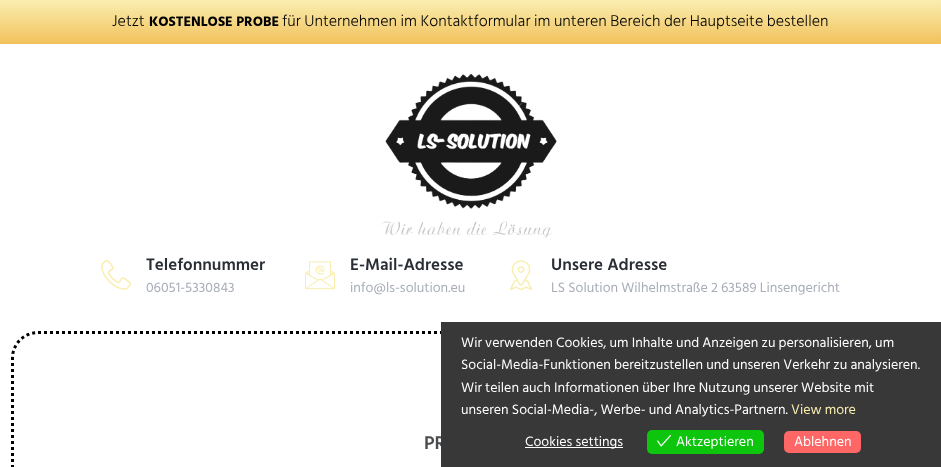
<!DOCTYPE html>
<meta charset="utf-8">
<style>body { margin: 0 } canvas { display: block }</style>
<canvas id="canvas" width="941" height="467"></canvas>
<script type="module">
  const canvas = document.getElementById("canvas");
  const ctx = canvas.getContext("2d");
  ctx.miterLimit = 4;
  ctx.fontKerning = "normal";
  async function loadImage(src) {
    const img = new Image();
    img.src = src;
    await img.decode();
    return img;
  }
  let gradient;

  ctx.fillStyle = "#ffffff";
  ctx.fillRect(0, 0, 941, 467);
  gradient = ctx.createLinearGradient(471, 0, 471, 44);
  gradient.addColorStop(0, "#f9eeb0");
  gradient.addColorStop(1, "#f2c15b");
  ctx.fillStyle = gradient;
  ctx.fillRect(0, 0, 941, 44);
  ctx.font = "300 16px Hind Siliguri";
  ctx.fillStyle = "#000000";
  ctx.fillText("Jetzt", 112, 26);
  ctx.font = "bold 14px Hind Siliguri";
  ctx.fillText("KOSTENLOSE PROBE", 149, 26);
  ctx.font = "300 16px Hind Siliguri";
  ctx.fillText("für Unternehmen im Kontaktformular im unteren Bereich der Hauptseite bestellen", 282, 26);
  ctx.drawImage(await loadImage("img1.png"), 381, 74, 176, 165);
  ctx.drawImage(await loadImage("img2.png"), 101, 260, 30, 30);
  ctx.font = "600 17px Hind Siliguri";
  ctx.fillStyle = "#292e35";
  ctx.fillText("Telefonnummer", 146, 270);
  ctx.font = "14px Hind Siliguri";
  ctx.fillStyle = "#a8adb8";
  ctx.fillText("06051-5330843", 146, 292);
  ctx.drawImage(await loadImage("img3.png"), 305, 261, 30, 29);
  ctx.font = "600 17px Hind Siliguri";
  ctx.fillStyle = "#292e35";
  ctx.fillText("E-Mail-Adresse", 350, 270);
  ctx.font = "14px Hind Siliguri";
  ctx.fillStyle = "#a8adb8";
  ctx.fillText("info@ls-solution.eu", 350, 292);
  ctx.drawImage(await loadImage("img4.png"), 509, 260, 24, 31);
  ctx.font = "600 17px Hind Siliguri";
  ctx.fillStyle = "#292e35";
  ctx.fillText("Unsere Adresse", 551, 270);
  ctx.font = "14px Hind Siliguri";
  ctx.fillStyle = "#a8adb8";
  ctx.fillText("LS Solution Wilhelmstraße 2 63589 Linsengericht", 551, 292);
  ctx.beginPath();
  ctx.moveTo(38, 332.5);
  ctx.lineTo(903, 332.5);
  ctx.bezierCurveTo(917, 332.5, 928.5, 344, 928.5, 358);
  ctx.lineTo(928.5, 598);
  ctx.bezierCurveTo(928.5, 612, 917, 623.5, 903, 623.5);
  ctx.lineTo(38, 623.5);
  ctx.bezierCurveTo(24, 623.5, 12.5, 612, 12.5, 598);
  ctx.lineTo(12.5, 358);
  ctx.bezierCurveTo(12.5, 344, 24, 332.5, 38, 332.5);
  ctx.closePath();
  ctx.strokeStyle = "#000000";
  ctx.lineWidth = 3;
  ctx.setLineDash([3, 3]);
  ctx.stroke();
  ctx.font = "600 19px Hind Siliguri";
  ctx.fillStyle = "#494c4f";
  ctx.fillText("PR", 424, 449);
  ctx.fillStyle = "#383838";
  ctx.fillRect(441, 322, 500, 145);
  ctx.font = "14px Hind Siliguri";
  ctx.fillStyle = "#ffffff";
  ctx.fillText("Wir verwenden Cookies, um Inhalte und Anzeigen zu personalisieren, um", 461, 347);
  ctx.fillText("Social-Media-Funktionen bereitzustellen und unseren Verkehr zu analysieren.", 461, 369);
  ctx.fillText("Wir teilen auch Informationen über Ihre Nutzung unserer Website mit", 461, 392);
  ctx.fillText("unseren Social-Media-, Werbe- und Analytics-Partnern.", 461, 414);
  ctx.fillStyle = "#f9eeb0";
  ctx.fillText("View more", 791, 414);
  ctx.fillStyle = "#ffffff";
  ctx.fillRect(525, 447, 98, 1);
  ctx.fillText("Cookies settings", 525, 446);
  ctx.fillStyle = "#0ec50e";
  ctx.beginPath();
  ctx.roundRect(647, 430, 117, 24, 5);
  ctx.fill();
  ctx.drawImage(await loadImage("img5.png"), 657, 435, 14, 12);
  ctx.fillStyle = "#ffffff";
  ctx.fillText("Aktzeptieren", 676, 446);
  ctx.fillStyle = "#ff6666";
  ctx.beginPath();
  ctx.roundRect(784, 431, 77, 22, 5);
  ctx.fill();
  ctx.fillStyle = "#ffffff";
  ctx.fillText("Ablehnen", 794, 446);
</script>
